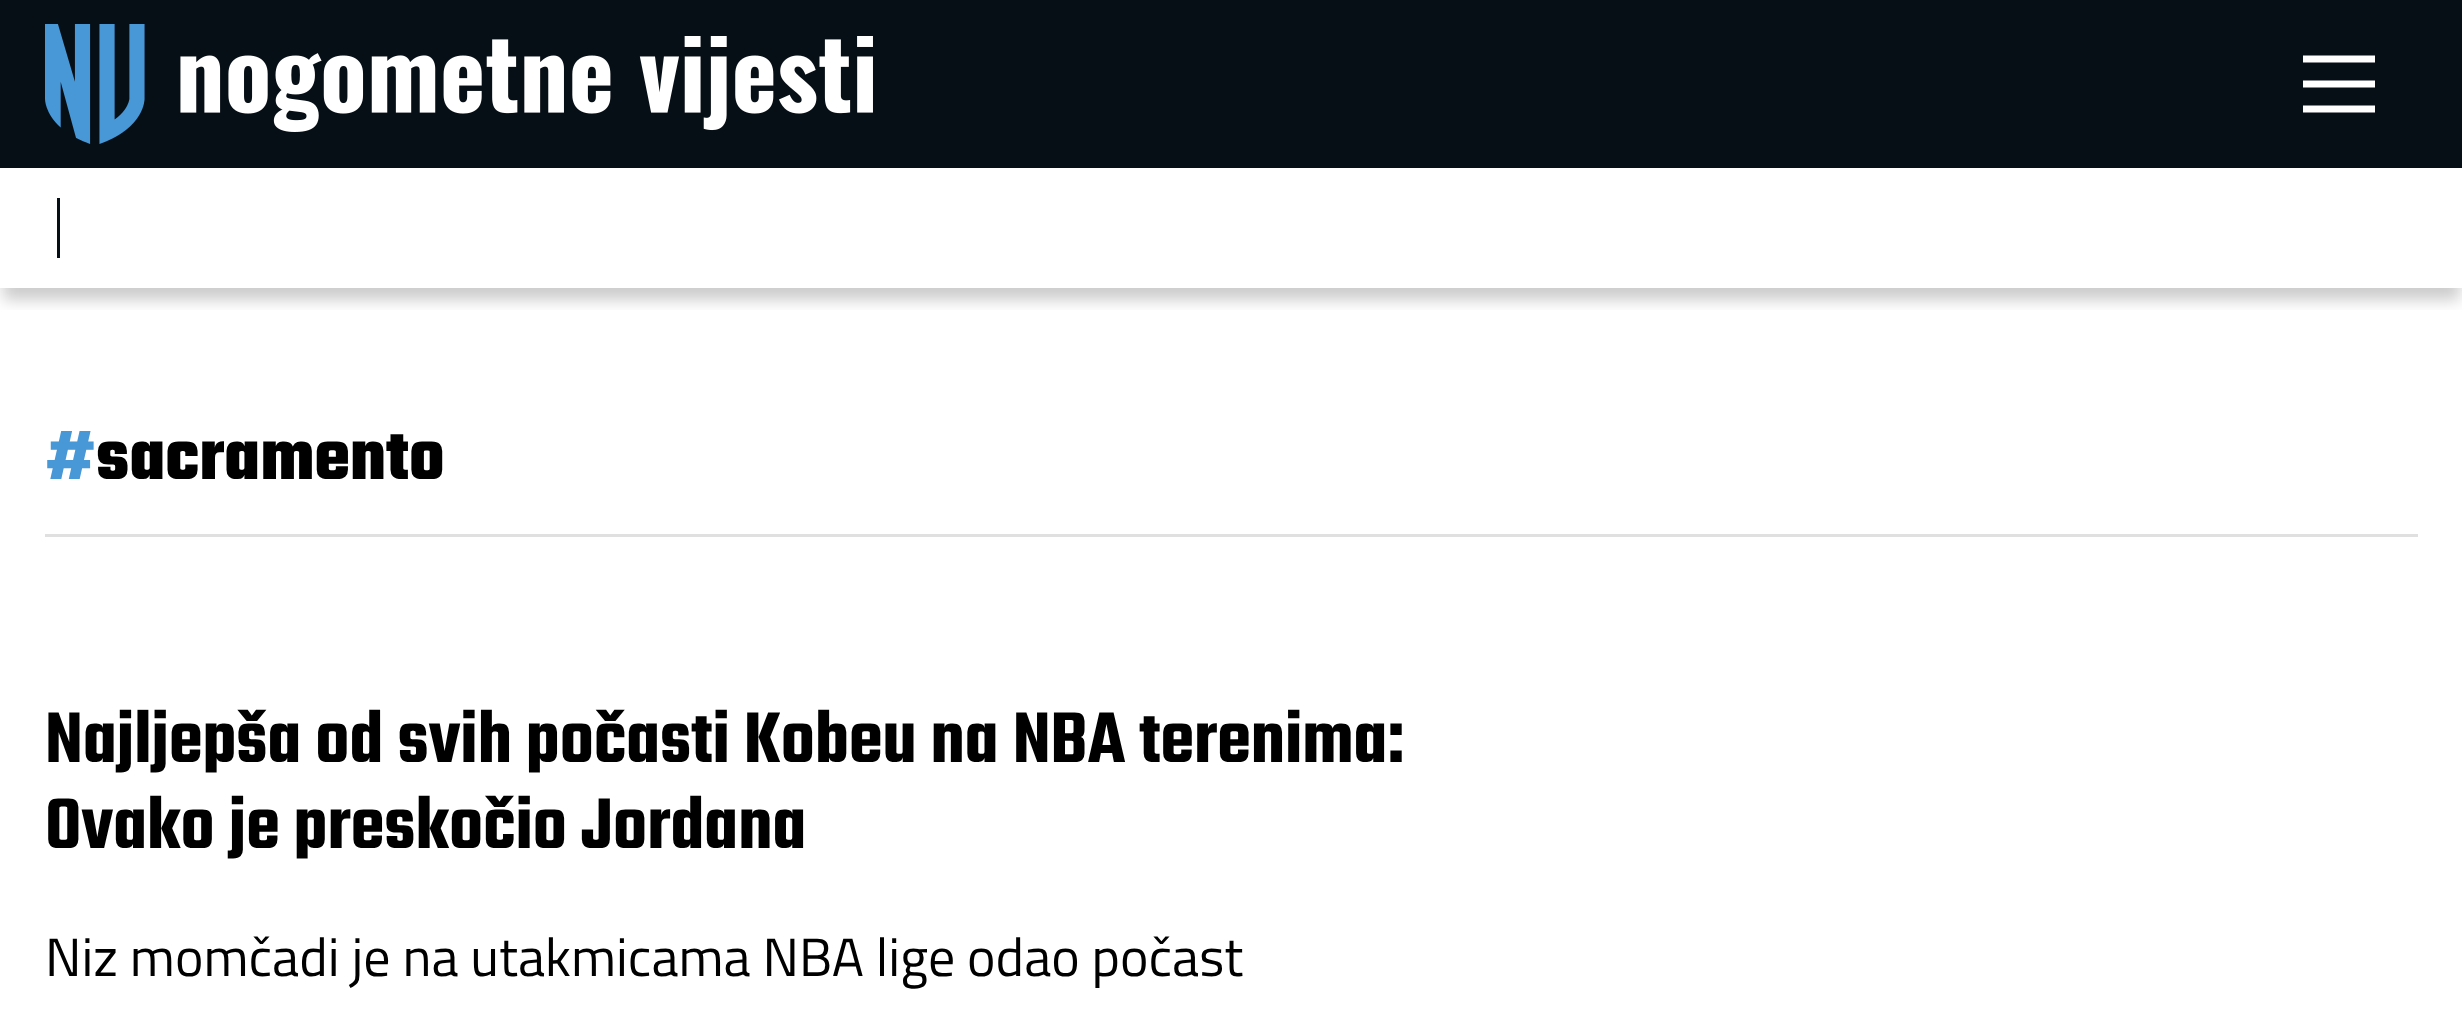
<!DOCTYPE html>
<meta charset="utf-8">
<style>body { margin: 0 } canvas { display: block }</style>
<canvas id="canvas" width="2462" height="1016"></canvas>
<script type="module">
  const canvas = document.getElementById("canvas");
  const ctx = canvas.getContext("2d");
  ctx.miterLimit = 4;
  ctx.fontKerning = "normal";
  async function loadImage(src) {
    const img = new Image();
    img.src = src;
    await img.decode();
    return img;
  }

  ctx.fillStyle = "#ffffff";
  ctx.fillRect(0, 0, 2462, 1016);
  ctx.fillStyle = "#070f16";
  ctx.fillRect(0, 0, 2462, 168);
  ctx.drawImage(await loadImage("img1.png"), 45, 24, 828, 120);
  ctx.beginPath();
  ctx.moveTo(2303, 59);
  ctx.lineTo(2375, 59);
  ctx.strokeStyle = "#ffffff";
  ctx.lineWidth = 7.2;
  ctx.stroke();
  ctx.beginPath();
  ctx.moveTo(2303, 84);
  ctx.lineTo(2375, 84);
  ctx.stroke();
  ctx.beginPath();
  ctx.moveTo(2303, 109);
  ctx.lineTo(2375, 109);
  ctx.stroke();
  ctx.save();
  ctx.beginPath();
  ctx.rect(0, 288, 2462, 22);
  ctx.clip();
  ctx.fillStyle = "rgba(0, 0, 0, 0.2)";
  ctx.filter = "blur(7.5px)";
  ctx.beginPath();
  ctx.rect(3, 186, 2457, 114);
  ctx.fill();
  ctx.filter = "none";
  ctx.restore();
  ctx.fillRect(57, 198, 3, 60);
  ctx.fillStyle = "#e0e0e0";
  ctx.fillRect(45, 534, 2373, 3);
  ctx.font = "bold 75px Teko";
  ctx.fillStyle = "#4898d7";
  ctx.fillText("#", 45, 479);
  ctx.fillStyle = "#000000";
  ctx.fillText("sacramento", 96, 479);
  ctx.font = "600 78px Teko";
  ctx.fillText("Najljepša od svih počasti Kobeu na NBA terenima:", 45, 762);
  ctx.fillText("Ovako je preskočio Jordana", 45, 848);
  ctx.font = "54px Titillium Web";
  ctx.fillText("Niz momčadi je na utakmicama NBA lige odao počast", 45, 976);
</script>
